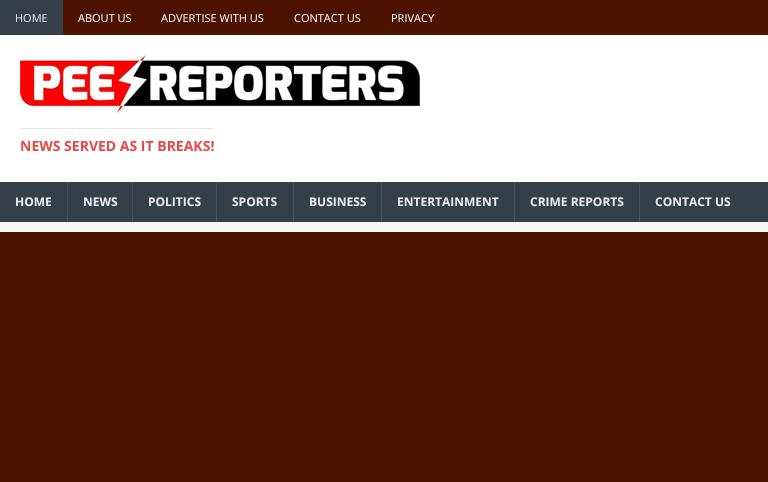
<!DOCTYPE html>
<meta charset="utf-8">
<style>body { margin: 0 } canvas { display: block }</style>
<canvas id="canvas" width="768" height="482"></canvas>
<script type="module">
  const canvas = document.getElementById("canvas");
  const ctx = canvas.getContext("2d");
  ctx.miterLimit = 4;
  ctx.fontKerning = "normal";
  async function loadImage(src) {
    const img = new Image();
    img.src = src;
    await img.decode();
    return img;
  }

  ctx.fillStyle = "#f7f7f7";
  ctx.fillRect(0, 0, 768, 482);
  ctx.fillStyle = "#4c1300";
  ctx.fillRect(63, 0, 705, 35);
  ctx.fillStyle = "#333f49";
  ctx.fillRect(0, 0, 63, 35);
  ctx.font = "11px Open Sans";
  ctx.fillStyle = "#e9ecf6";
  ctx.fillText("HOME", 15, 22);
  ctx.fillStyle = "#ffffff";
  ctx.fillText("ABOUT US", 78, 22);
  ctx.fillText("ADVERTISE WITH US", 161, 22);
  ctx.fillText("CONTACT US", 294, 22);
  ctx.fillText("PRIVACY", 391, 22);
  ctx.fillRect(0, 35, 768, 147);
  ctx.drawImage(await loadImage("img1.png"), 20, 55, 400, 58);
  ctx.fillStyle = "#e5e5e5";
  ctx.fillRect(20, 128, 194, 1);
  ctx.font = "bold 14px Open Sans";
  ctx.fillStyle = "#e64946";
  ctx.fillText("NEWS SERVED AS IT BREAKS!", 20, 151);
  ctx.fillStyle = "#333f49";
  ctx.fillRect(0, 182, 768, 40);
  ctx.font = "bold 12px Open Sans";
  ctx.fillStyle = "#e9ecf6";
  ctx.fillText("HOME", 15, 206);
  ctx.fillStyle = "#47525b";
  ctx.fillRect(67, 182, 1, 40);
  ctx.fillStyle = "#e9ecf6";
  ctx.fillText("NEWS", 83, 206);
  ctx.fillStyle = "#47525b";
  ctx.fillRect(132, 182, 1, 40);
  ctx.fillStyle = "#e9ecf6";
  ctx.fillText("POLITICS", 148, 206);
  ctx.fillStyle = "#47525b";
  ctx.fillRect(216, 182, 1, 40);
  ctx.fillStyle = "#e9ecf6";
  ctx.fillText("SPORTS", 232, 206);
  ctx.fillStyle = "#47525b";
  ctx.fillRect(293, 182, 1, 40);
  ctx.fillStyle = "#e9ecf6";
  ctx.fillText("BUSINESS", 309, 206);
  ctx.fillStyle = "#47525b";
  ctx.fillRect(381, 182, 1, 40);
  ctx.fillStyle = "#e9ecf6";
  ctx.fillText("ENTERTAINMENT", 397, 206);
  ctx.fillStyle = "#47525b";
  ctx.fillRect(514, 182, 1, 40);
  ctx.fillStyle = "#e9ecf6";
  ctx.fillText("CRIME REPORTS", 530, 206);
  ctx.fillStyle = "#47525b";
  ctx.fillRect(639, 182, 1, 40);
  ctx.fillStyle = "#e9ecf6";
  ctx.fillText("CONTACT US", 655, 206);
  ctx.fillStyle = "#4c1300";
  ctx.fillRect(0, 232, 768, 250);
</script>
